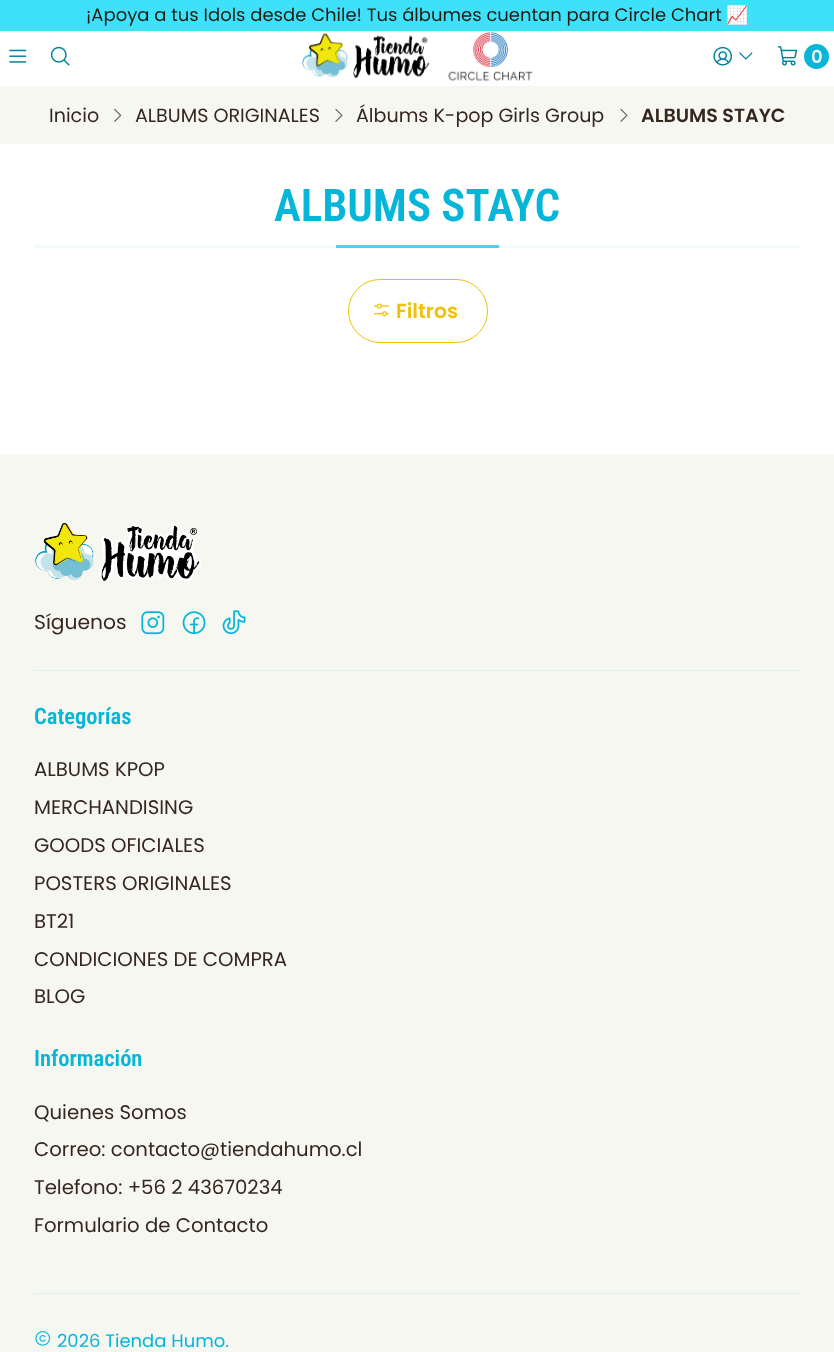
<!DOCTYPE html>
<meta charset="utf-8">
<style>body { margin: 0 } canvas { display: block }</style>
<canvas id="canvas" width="834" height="1352"></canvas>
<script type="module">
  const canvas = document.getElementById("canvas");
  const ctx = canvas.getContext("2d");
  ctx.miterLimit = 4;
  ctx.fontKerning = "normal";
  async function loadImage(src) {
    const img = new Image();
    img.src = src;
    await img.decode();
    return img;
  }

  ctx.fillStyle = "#ffffff";
  ctx.fillRect(0, 0, 834, 1352);
  ctx.fillStyle = "#f3fbfd";
  ctx.fillRect(34, 245, 767, 3);
  ctx.fillStyle = "#3ee1fa";
  ctx.fillRect(0, 0, 834, 31);
  ctx.font = "18px Poppins";
  ctx.fillStyle = "#261c15";
  ctx.fillText("¡Apoya a tus Idols desde Chile! Tus álbumes cuentan para Circle Chart", 86, 21);
  ctx.font = "18px Noto Color Emoji";
  ctx.fillText("📈", 726, 21);
  ctx.drawImage(await loadImage("img1.png"), 9, 49, 18, 14);
  ctx.drawImage(await loadImage("img2.png"), 50, 46, 20, 20);
  ctx.drawImage(await loadImage("img3.png"), 302, 33, 128, 46);
  ctx.drawImage(await loadImage("img4.png"), 448, 32, 85, 49);
  ctx.drawImage(await loadImage("img5.png"), 713, 46, 19, 20);
  ctx.drawImage(await loadImage("img6.png"), 739, 52, 14, 8);
  ctx.drawImage(await loadImage("img7.png"), 777, 46, 20, 20);
  ctx.fillStyle = "#05b6d8";
  ctx.beginPath();
  ctx.arc(816.5, 56.5, 12.5, 0, Math.PI * 2);
  ctx.fill();
  ctx.font = "600 18px Poppins";
  ctx.fillStyle = "#f5f5f5";
  ctx.fillText("0", 811, 63);
  ctx.fillStyle = "#f7f7f2";
  ctx.fillRect(0, 86, 834, 58);
  ctx.font = "19.1px Poppins";
  ctx.fillStyle = "#35271d";
  ctx.fillText("Inicio", 49, 122);
  ctx.drawImage(await loadImage("img8.png"), 114, 108, 8, 14);
  ctx.fillText("ALBUMS ORIGINALES", 135, 122);
  ctx.drawImage(await loadImage("img9.png"), 335, 108, 8, 14);
  ctx.fillText("Álbums K-pop Girls Group", 356, 122);
  ctx.drawImage(await loadImage("img9.png"), 620, 108, 8, 14);
  ctx.font = "600 19.1px Poppins";
  ctx.fillText("ALBUMS STAYC", 641, 122);
  ctx.font = "600 45px Roboto Condensed";
  ctx.fillStyle = "#05b6d8";
  ctx.fillText("ALBUMS STAYC", 274, 221);
  ctx.fillStyle = "#57cbf5";
  ctx.fillRect(336, 245, 163, 3);
  ctx.beginPath();
  ctx.roundRect(348.5, 279.5, 139, 63, 31.5);
  ctx.strokeStyle = "#f0c105";
  ctx.stroke();
  ctx.drawImage(await loadImage("img10.png"), 373, 303, 16, 14);
  ctx.font = "600 20.25px Poppins";
  ctx.fillStyle = "#f0c105";
  ctx.fillText("Filtros", 396, 318);
  ctx.fillStyle = "#f7f7f2";
  ctx.fillRect(0, 454, 834, 898);
  ctx.drawImage(await loadImage("img11.png"), 35, 523, 166, 59);
  ctx.font = "20.25px Poppins";
  ctx.fillStyle = "#35271d";
  ctx.fillText("Síguenos", 34, 629);
  ctx.drawImage(await loadImage("img12.png"), 141, 611, 24, 24);
  ctx.drawImage(await loadImage("img13.png"), 182, 611, 24, 24);
  ctx.drawImage(await loadImage("img14.png"), 222, 610, 24, 25);
  ctx.fillStyle = "#dff0ef";
  ctx.fillRect(34, 670, 767, 1);
  ctx.font = "600 22.5px Roboto Condensed";
  ctx.fillStyle = "#05b6d8";
  ctx.fillText("Categorías", 34, 724);
  ctx.font = "19.7px Poppins";
  ctx.fillStyle = "#35271d";
  ctx.fillText("ALBUMS KPOP", 34, 776);
  ctx.fillText("MERCHANDISING", 34, 814);
  ctx.fillText("GOODS OFICIALES", 34, 852);
  ctx.fillText("POSTERS ORIGINALES", 34, 890);
  ctx.fillText("BT21", 34, 928);
  ctx.fillText("CONDICIONES DE COMPRA", 34, 966);
  ctx.fillText("BLOG", 34, 1003);
  ctx.font = "600 22.5px Roboto Condensed";
  ctx.fillStyle = "#05b6d8";
  ctx.fillText("Información", 34, 1066);
  ctx.font = "19.7px Poppins";
  ctx.fillStyle = "#35271d";
  ctx.fillText("Quienes Somos", 34, 1119);
  ctx.fillText("Correo: contacto@tiendahumo.cl", 34, 1156);
  ctx.fillText("Telefono: +56 2 43670234", 34, 1194);
  ctx.fillText("Formulario de Contacto", 34, 1232);
  ctx.fillStyle = "#dff0ef";
  ctx.fillRect(34, 1293, 767, 1);
  ctx.drawImage(await loadImage("img15.png"), 35, 1331, 16, 15);
  ctx.font = "18px Poppins";
  ctx.fillStyle = "#05b6d8";
  ctx.fillText("2026 Tienda Humo.", 57, 1347);
</script>
